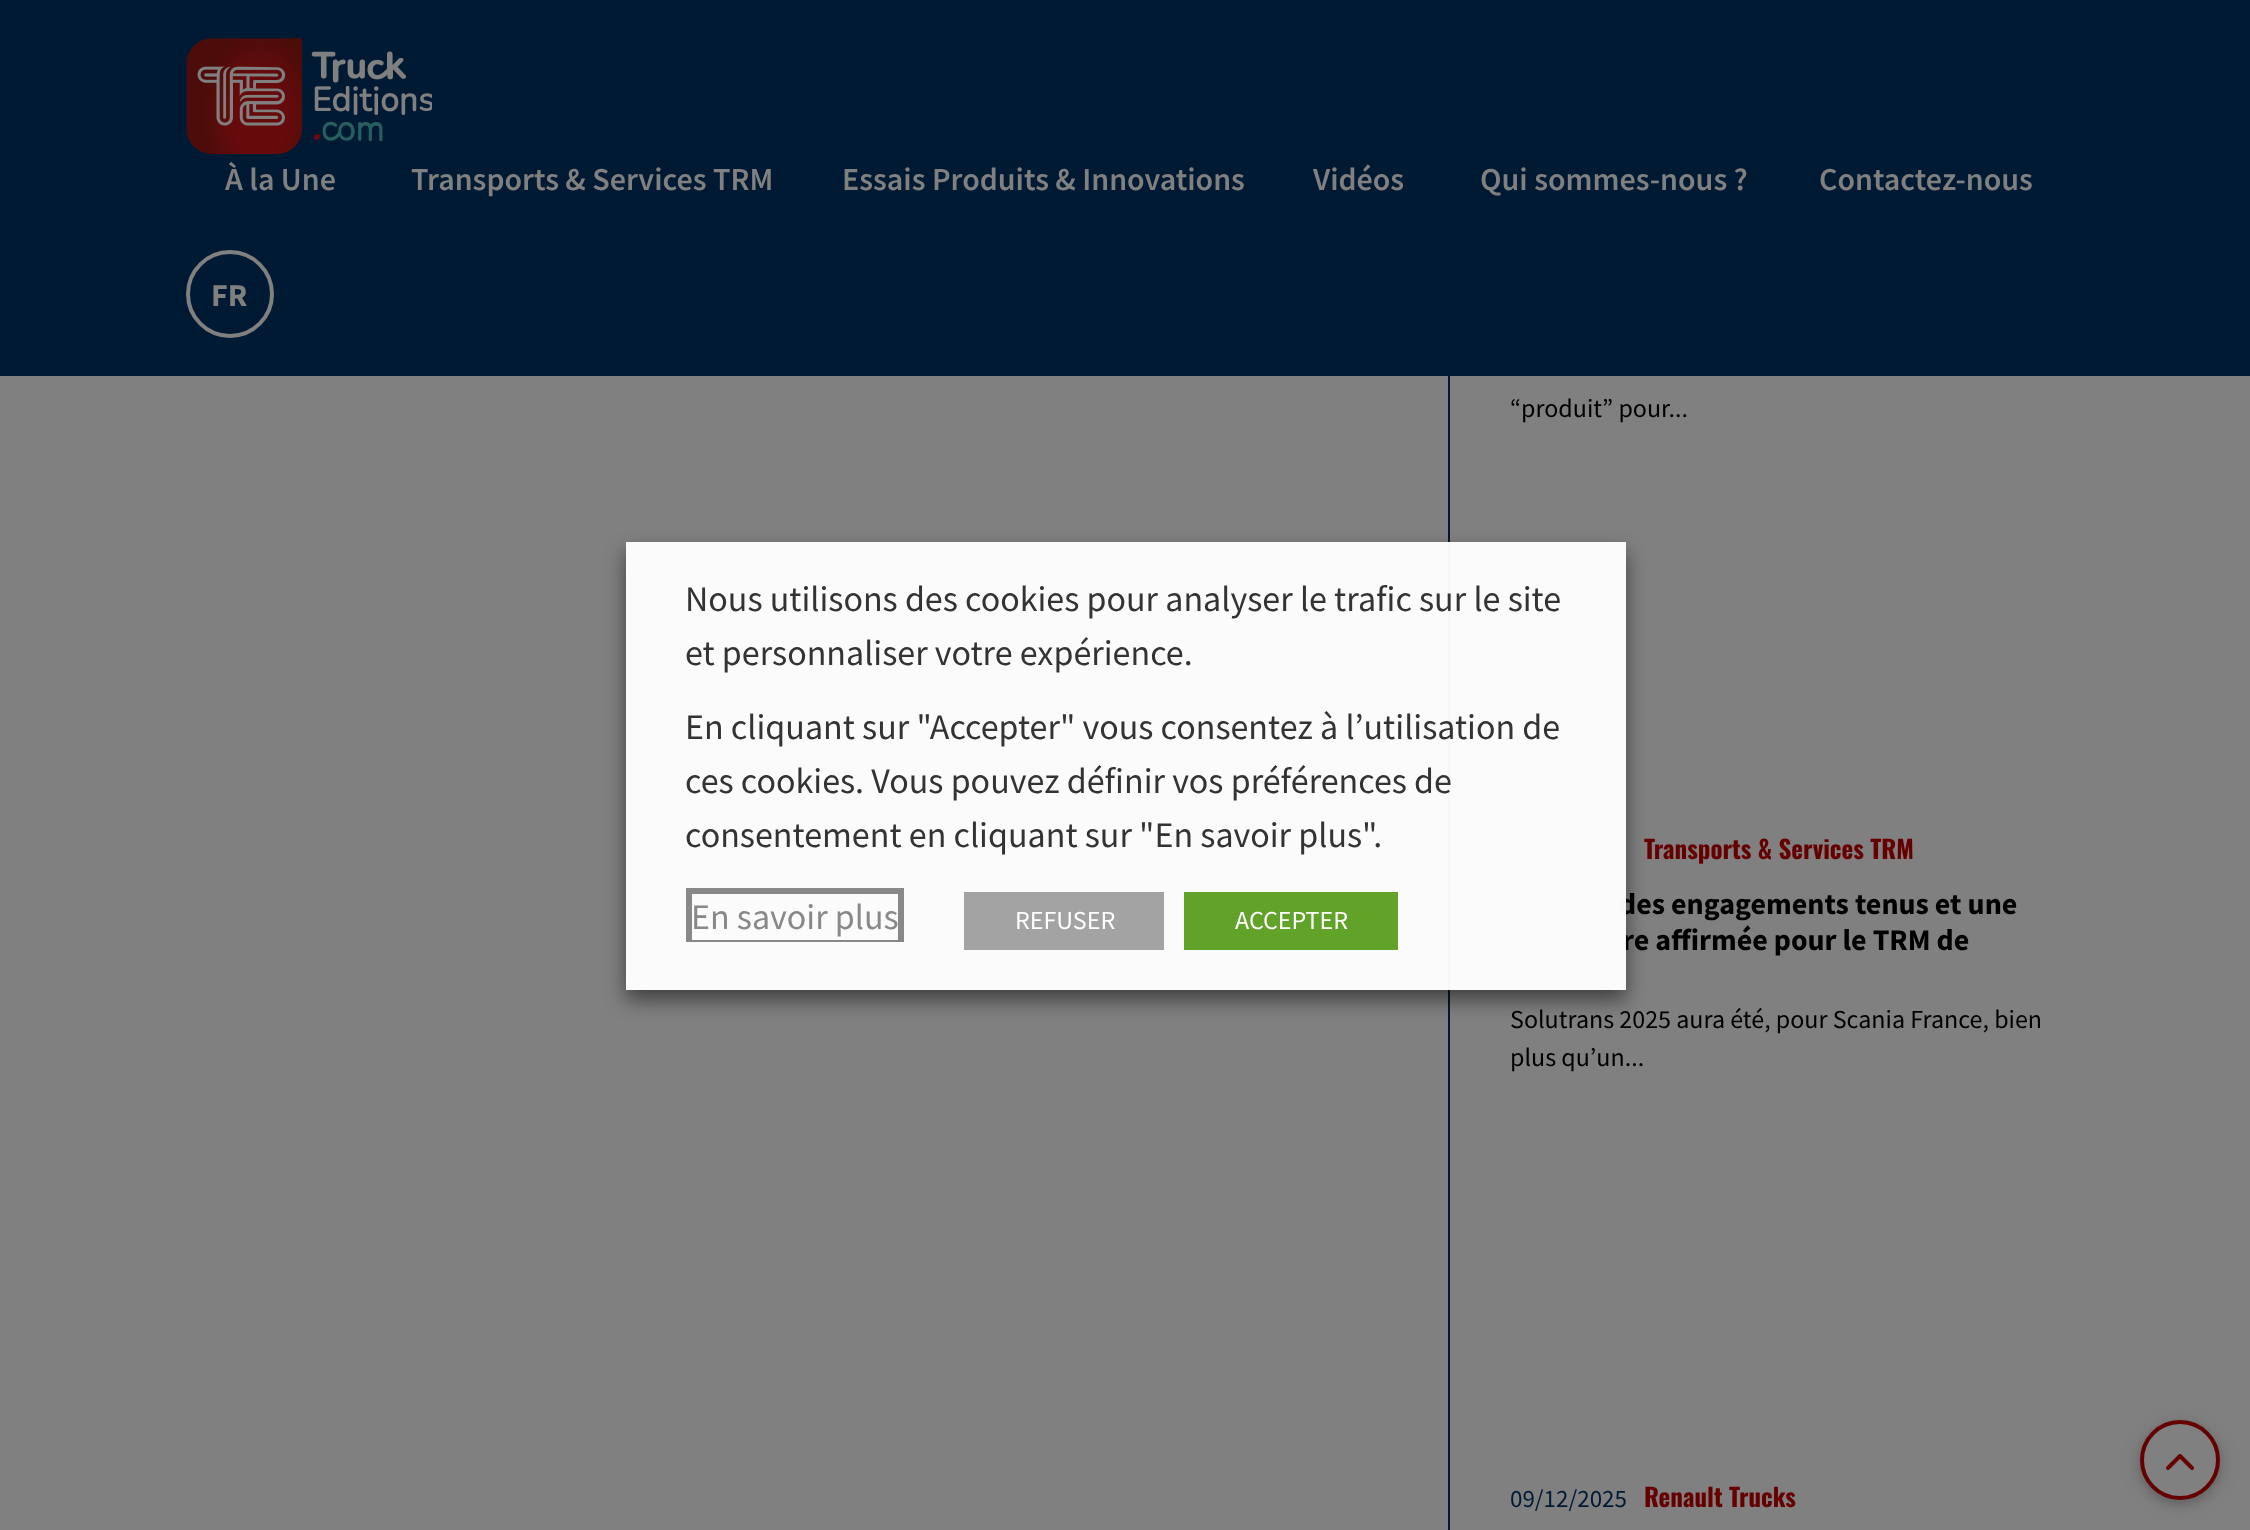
<!DOCTYPE html>
<meta charset="utf-8">
<style>body { margin: 0 } canvas { display: block }</style>
<canvas id="canvas" width="2250" height="1530"></canvas>
<script type="module">
  const canvas = document.getElementById("canvas");
  const ctx = canvas.getContext("2d");
  ctx.miterLimit = 4;
  ctx.fontKerning = "normal";
  async function loadImage(src) {
    const img = new Image();
    img.src = src;
    await img.decode();
    return img;
  }

  ctx.fillStyle = "#808080";
  ctx.fillRect(0, 0, 2250, 1530);
  ctx.fillStyle = "#001a33";
  ctx.fillRect(0, 0, 2250, 376);
  ctx.drawImage(await loadImage("img1.png"), 186, 38, 246, 116);
  ctx.font = "600 32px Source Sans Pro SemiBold";
  ctx.fillStyle = "#808080";
  ctx.fillText("À la Une", 225, 190);
  ctx.fillText("Transports & Services TRM", 411, 190);
  ctx.fillText("Essais Produits & Innovations", 842, 190);
  ctx.fillText("Vidéos", 1313, 190);
  ctx.fillText("Qui sommes-nous ?", 1480, 190);
  ctx.fillText("Contactez-nous", 1819, 190);
  ctx.beginPath();
  ctx.arc(230, 294, 42, 0, Math.PI * 2);
  ctx.strokeStyle = "#808080";
  ctx.lineWidth = 4;
  ctx.stroke();
  ctx.font = "bold 32px Source Sans Pro";
  ctx.fillText("FR", 211, 306);
  ctx.fillStyle = "#001a33";
  ctx.fillRect(1448, 376, 2, 1154);
  ctx.save();
  ctx.beginPath();
  ctx.moveTo(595, 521);
  ctx.lineTo(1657, 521);
  ctx.lineTo(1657, 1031);
  ctx.lineTo(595, 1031);
  ctx.closePath();
  ctx.moveTo(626, 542);
  ctx.lineTo(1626, 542);
  ctx.lineTo(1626, 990);
  ctx.lineTo(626, 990);
  ctx.closePath();
  ctx.clip("evenodd");
  ctx.fillStyle = "rgba(0, 0, 0, 0.5)";
  ctx.filter = "blur(10px)";
  ctx.beginPath();
  ctx.rect(626, 552, 1000, 448);
  ctx.fill();
  ctx.filter = "none";
  ctx.restore();
  ctx.font = "bold 30px Source Sans Pro";
  ctx.fillStyle = "#000000";
  ctx.fillText("des engagements tenus et une", 1619, 914);
  ctx.fillText("re affirmée pour le TRM de", 1622, 950);
  ctx.fillStyle = "rgba(255, 255, 255, 0.97)";
  ctx.fillRect(626, 542, 1000, 448);
  ctx.font = "36px Source Sans Pro";
  ctx.fillStyle = "#333333";
  ctx.fillText("Nous utilisons des cookies pour analyser le trafic sur le site", 685, 611);
  ctx.fillText("et personnaliser votre expérience.", 685, 665);
  ctx.fillText("En cliquant sur \"Accepter\" vous consentez à l’utilisation de", 685, 739);
  ctx.fillText("ces cookies. Vous pouvez définir vos préférences de", 685, 793);
  ctx.fillText("consentement en cliquant sur \"En savoir plus\".", 685, 847);
  ctx.fillStyle = "#898888";
  ctx.fillText("En savoir plus", 691, 929);
  ctx.fillRect(686, 888, 218, 6);
  ctx.fillRect(898, 888, 6, 54);
  ctx.fillRect(686, 940, 218, 2);
  ctx.fillRect(686, 888, 6, 54);
  ctx.fillStyle = "#a3a3a3";
  ctx.fillRect(964, 892, 200, 58);
  ctx.font = "26px Source Sans Pro";
  ctx.fillStyle = "#ffffff";
  ctx.fillText("REFUSER", 1015, 929);
  ctx.fillStyle = "#61a229";
  ctx.fillRect(1184, 892, 214, 58);
  ctx.fillStyle = "#ffffff";
  ctx.fillText("ACCEPTER", 1235, 929);
  ctx.fillStyle = "#000000";
  ctx.fillText("“produit” pour...", 1510, 417);
  ctx.font = "bold 25px Oswald";
  ctx.fillStyle = "#660000";
  ctx.fillText("Transports & Services TRM", 1644, 859);
  ctx.font = "26px Source Sans Pro";
  ctx.fillStyle = "#000000";
  ctx.fillText("Solutrans 2025 aura été, pour Scania France, bien", 1510, 1028);
  ctx.fillText("plus qu’un...", 1510, 1066);
  ctx.font = "25px Source Sans Pro";
  ctx.fillStyle = "#001a33";
  ctx.fillText("09/12/2025", 1510, 1507);
  ctx.font = "bold 25px Oswald";
  ctx.fillStyle = "#660000";
  ctx.fillText("Renault Trucks", 1644, 1507);
  ctx.fillStyle = "rgba(0, 0, 0, 0.12)";
  ctx.filter = "blur(10px)";
  ctx.beginPath();
  ctx.roundRect(2140, 1424, 80, 80, 40);
  ctx.fill();
  ctx.filter = "none";
  ctx.fillStyle = "rgba(0, 0, 0, 0.16)";
  ctx.filter = "blur(5px)";
  ctx.beginPath();
  ctx.roundRect(2140, 1424, 80, 80, 40);
  ctx.fill();
  ctx.filter = "none";
  ctx.fillStyle = "#808080";
  ctx.beginPath();
  ctx.arc(2180, 1460, 38, 0, Math.PI * 2);
  ctx.fill();
  ctx.strokeStyle = "#660000";
  ctx.stroke();
  ctx.drawImage(await loadImage("img2.png"), 2166, 1454, 28, 16);
</script>
